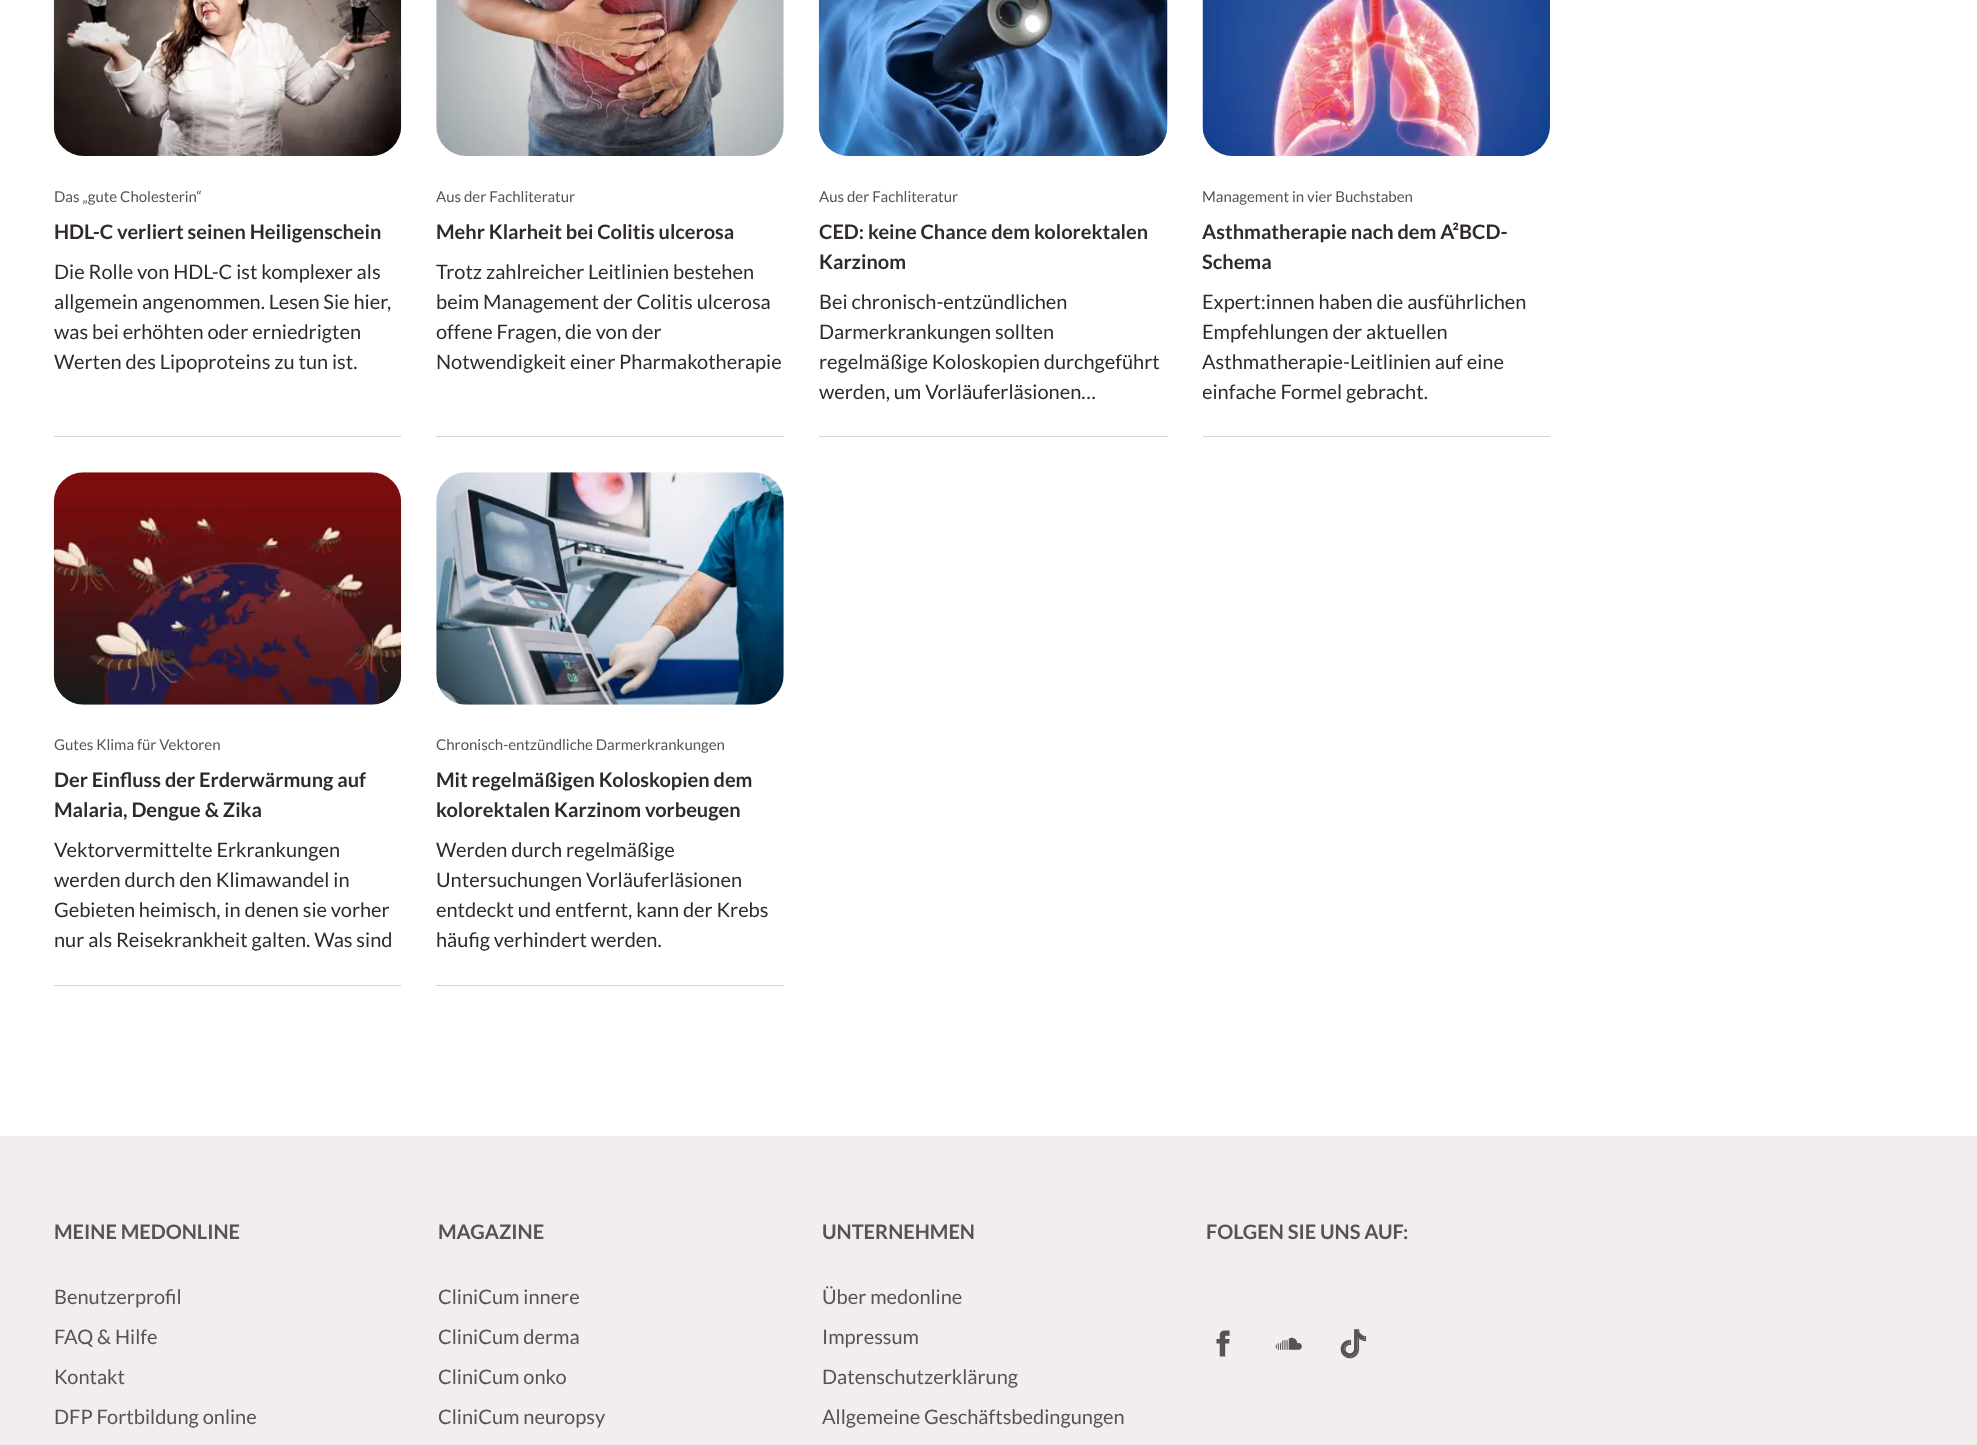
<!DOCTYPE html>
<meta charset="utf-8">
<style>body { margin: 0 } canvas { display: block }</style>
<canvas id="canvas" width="1977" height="1445"></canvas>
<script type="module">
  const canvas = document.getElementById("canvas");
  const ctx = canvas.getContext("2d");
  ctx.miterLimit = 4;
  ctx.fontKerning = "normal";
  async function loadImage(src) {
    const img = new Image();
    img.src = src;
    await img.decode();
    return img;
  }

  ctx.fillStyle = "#ffffff";
  ctx.fillRect(0, 0, 1977, 1445);
  ctx.drawImage(await loadImage("img1.png"), 53, 0, 349, 156);
  ctx.font = "15px Lato";
  ctx.fillStyle = "#585353";
  ctx.fillText("Das „gute Cholesterin“", 54, 202);
  ctx.font = "bold 20px Lato";
  ctx.fillStyle = "#302a2a";
  ctx.fillText("HDL-C verliert seinen Heiligenschein", 54, 239);
  ctx.font = "20px Lato";
  ctx.fillText("Die Rolle von HDL-C ist komplexer als", 54, 279);
  ctx.fillText("allgemein angenommen. Lesen Sie hier,", 54, 309);
  ctx.fillText("was bei erhöhten oder erniedrigten", 54, 339);
  ctx.fillText("Werten des Lipoproteins zu tun ist.", 54, 369);
  ctx.fillStyle = "#d6d4d4";
  ctx.fillRect(54, 436, 347, 1);
  ctx.drawImage(await loadImage("img2.png"), 436, 0, 348, 156);
  ctx.font = "15px Lato";
  ctx.fillStyle = "#585353";
  ctx.fillText("Aus der Fachliteratur", 436, 202);
  ctx.font = "bold 20px Lato";
  ctx.fillStyle = "#302a2a";
  ctx.fillText("Mehr Klarheit bei Colitis ulcerosa", 436, 239);
  ctx.font = "20px Lato";
  ctx.fillText("Trotz zahlreicher Leitlinien bestehen", 436, 279);
  ctx.fillText("beim Management der Colitis ulcerosa", 436, 309);
  ctx.fillText("offene Fragen, die von der", 436, 339);
  ctx.fillText("Notwendigkeit einer Pharmakotherapie", 436, 369);
  ctx.fillStyle = "#d6d4d4";
  ctx.fillRect(436, 436, 348, 1);
  ctx.drawImage(await loadImage("img3.png"), 818, 0, 350, 156);
  ctx.font = "15px Lato";
  ctx.fillStyle = "#585353";
  ctx.fillText("Aus der Fachliteratur", 819, 202);
  ctx.font = "bold 20px Lato";
  ctx.fillStyle = "#302a2a";
  ctx.fillText("CED: keine Chance dem kolorektalen", 819, 239);
  ctx.fillText("Karzinom", 819, 269);
  ctx.font = "20px Lato";
  ctx.fillText("Bei chronisch-entzündlichen", 819, 309);
  ctx.fillText("Darmerkrankungen sollten", 819, 339);
  ctx.fillText("regelmäßige Koloskopien durchgeführt", 819, 369);
  ctx.fillText("werden, um Vorläuferläsionen…", 819, 399);
  ctx.fillStyle = "#d6d4d4";
  ctx.fillRect(819, 436, 349, 1);
  ctx.drawImage(await loadImage("img4.png"), 1202, 0, 348, 156);
  ctx.font = "15px Lato";
  ctx.fillStyle = "#585353";
  ctx.fillText("Management in vier Buchstaben", 1202, 202);
  ctx.font = "bold 20px Lato";
  ctx.fillStyle = "#302a2a";
  ctx.fillText("Asthmatherapie nach dem A²BCD-", 1202, 239);
  ctx.fillText("Schema", 1202, 269);
  ctx.font = "20px Lato";
  ctx.fillText("Expert:innen haben die ausführlichen", 1202, 309);
  ctx.fillText("Empfehlungen der aktuellen", 1202, 339);
  ctx.fillText("Asthmatherapie-Leitlinien auf eine", 1202, 369);
  ctx.save();
  ctx.beginPath();
  ctx.rect(1203, 286, 347, 120);
  ctx.clip();
  ctx.fillText("einfache Formel gebracht.", 1202, 399);
  ctx.restore();
  ctx.fillStyle = "#d6d4d4";
  ctx.fillRect(1203, 436, 347, 1);
  ctx.drawImage(await loadImage("img5.png"), 53, 472, 349, 233);
  ctx.font = "15px Lato";
  ctx.fillStyle = "#585353";
  ctx.fillText("Gutes Klima für Vektoren", 54, 750);
  ctx.font = "bold 20px Lato";
  ctx.fillStyle = "#302a2a";
  ctx.fillText("Der Einfluss der Erderwärmung auf", 54, 787);
  ctx.fillText("Malaria, Dengue & Zika", 54, 817);
  ctx.font = "20px Lato";
  ctx.fillText("Vektorvermittelte Erkrankungen", 54, 857);
  ctx.fillText("werden durch den Klimawandel in", 54, 887);
  ctx.fillText("Gebieten heimisch, in denen sie vorher", 54, 917);
  ctx.fillText("nur als Reisekrankheit galten. Was sind", 54, 947);
  ctx.fillStyle = "#d6d4d4";
  ctx.fillRect(54, 985, 347, 1);
  ctx.drawImage(await loadImage("img6.png"), 436, 472, 348, 233);
  ctx.font = "15px Lato";
  ctx.fillStyle = "#585353";
  ctx.fillText("Chronisch-entzündliche Darmerkrankungen", 436, 750);
  ctx.font = "bold 20px Lato";
  ctx.fillStyle = "#302a2a";
  ctx.fillText("Mit regelmäßigen Koloskopien dem", 436, 787);
  ctx.fillText("kolorektalen Karzinom vorbeugen", 436, 817);
  ctx.font = "20px Lato";
  ctx.fillText("Werden durch regelmäßige", 436, 857);
  ctx.fillText("Untersuchungen Vorläuferläsionen", 436, 887);
  ctx.fillText("entdeckt und entfernt, kann der Krebs", 436, 917);
  ctx.fillText("häufig verhindert werden.", 436, 947);
  ctx.fillStyle = "#d6d4d4";
  ctx.fillRect(436, 985, 348, 1);
  ctx.fillStyle = "#f3eded";
  ctx.fillRect(0, 1136, 1977, 309);
  ctx.font = "bold 20px Lato";
  ctx.fillStyle = "#585353";
  ctx.fillText("MEINE MEDONLINE", 54, 1239);
  ctx.font = "20px Lato";
  ctx.fillText("Benutzerprofil", 54, 1304);
  ctx.fillText("FAQ & Hilfe", 54, 1344);
  ctx.fillText("Kontakt", 54, 1384);
  ctx.fillText("DFP Fortbildung online", 54, 1424);
  ctx.font = "bold 20px Lato";
  ctx.fillText("MAGAZINE", 438, 1239);
  ctx.font = "20px Lato";
  ctx.fillText("CliniCum innere", 438, 1304);
  ctx.fillText("CliniCum derma", 438, 1344);
  ctx.fillText("CliniCum onko", 438, 1384);
  ctx.fillText("CliniCum neuropsy", 438, 1424);
  ctx.font = "bold 20px Lato";
  ctx.fillText("UNTERNEHMEN", 822, 1239);
  ctx.font = "20px Lato";
  ctx.fillText("Über medonline", 822, 1304);
  ctx.fillText("Impressum", 822, 1344);
  ctx.fillText("Datenschutzerklärung", 822, 1384);
  ctx.fillText("Allgemeine Geschäftsbedingungen", 822, 1424);
  ctx.font = "bold 20px Lato";
  ctx.fillText("FOLGEN SIE UNS AUF:", 1206, 1239);
  ctx.drawImage(await loadImage("img7.png"), 1216, 1330, 14, 27);
  ctx.drawImage(await loadImage("img8.png"), 1275, 1337, 27, 13);
  ctx.drawImage(await loadImage("img9.png"), 1340, 1329, 27, 30);
</script>
